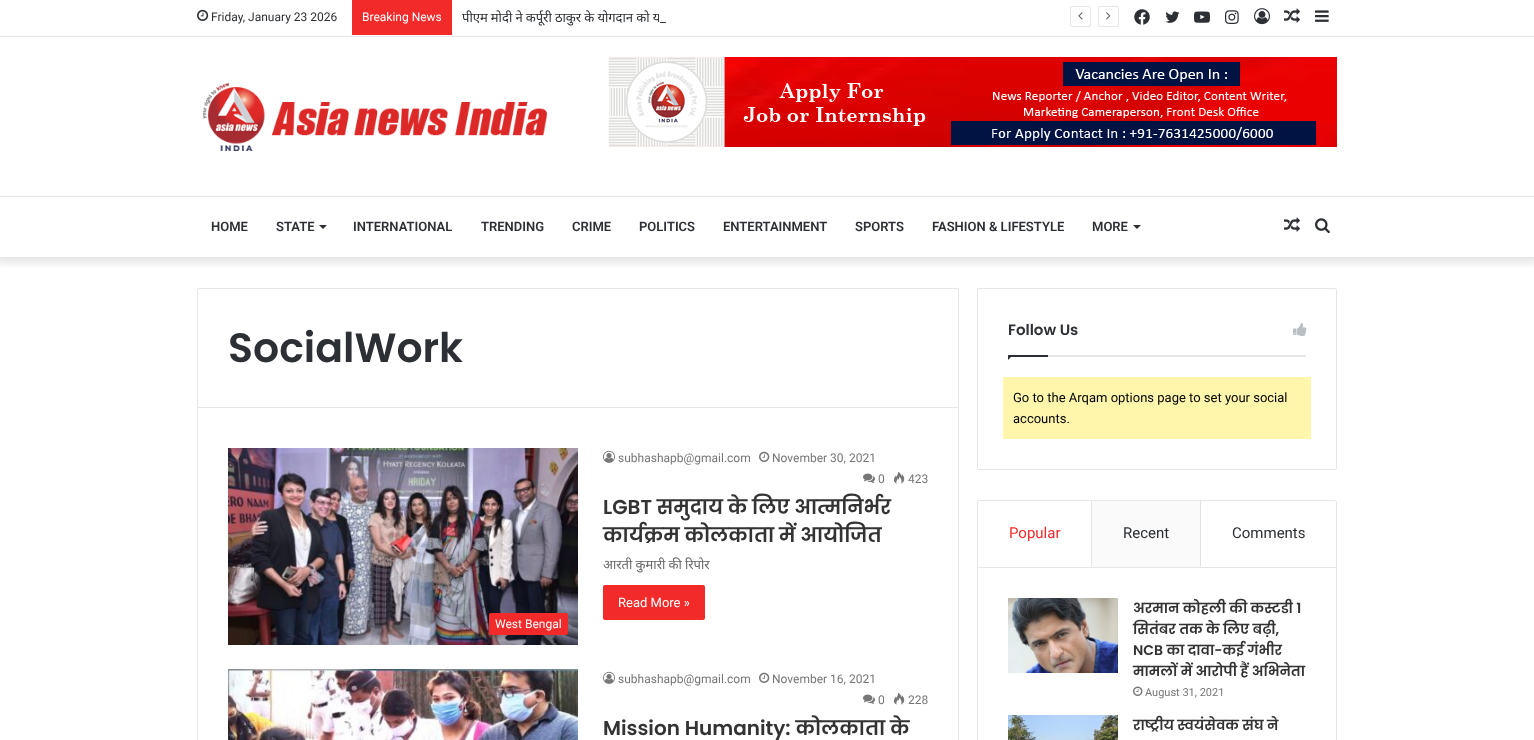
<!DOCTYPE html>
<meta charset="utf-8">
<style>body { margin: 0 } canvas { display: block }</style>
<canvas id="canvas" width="1534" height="740"></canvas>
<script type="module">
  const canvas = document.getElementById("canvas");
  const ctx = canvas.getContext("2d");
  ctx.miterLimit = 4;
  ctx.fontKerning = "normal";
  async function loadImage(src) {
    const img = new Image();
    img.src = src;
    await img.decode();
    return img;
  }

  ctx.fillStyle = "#ffffff";
  ctx.fillRect(0, 0, 1534, 740);
  ctx.save();
  ctx.beginPath();
  ctx.rect(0, 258, 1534, 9);
  ctx.clip();
  ctx.fillStyle = "rgba(0, 0, 0, 0.1)";
  ctx.filter = "blur(5px)";
  ctx.beginPath();
  ctx.rect(-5, -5, 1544, 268);
  ctx.fill();
  ctx.filter = "none";
  ctx.restore();
  ctx.fillStyle = "#e6e6e6";
  ctx.fillRect(0, 36, 1534, 1);
  ctx.drawImage(await loadImage("img1.png"), 197, 9, 12, 12);
  ctx.font = "12px Roboto";
  ctx.fillStyle = "#2c2f34";
  ctx.fillText("Friday, January 23 2026", 211, 21);
  ctx.fillStyle = "#f22a29";
  ctx.fillRect(352, 0, 100, 35);
  ctx.fillStyle = "#ffffff";
  ctx.fillText("Breaking News", 362, 21);
  ctx.save();
  ctx.beginPath();
  ctx.rect(462, 0, 352, 35);
  ctx.clip();
  ctx.wordSpacing = "-0.25px";
  ctx.font = "13px Noto Sans";
  ctx.fillStyle = "#2c2f34";
  ctx.fillText("पीएम मोदी ने कर्पूरी ठाकुर के योगदान को य", 462, 22);
  ctx.restore();
  ctx.fillRect(659, 13, 3, 9);
  ctx.font = "13px Roboto";
  ctx.fillStyle = "#2c2f34";
  ctx.fillText("_", 660, 22);
  ctx.beginPath();
  ctx.roundRect(1070.5, 6.5, 20, 20, 1.5);
  ctx.strokeStyle = "#e6e6e6";
  ctx.stroke();
  ctx.drawImage(await loadImage("img2.png"), 1078, 12, 5, 8);
  ctx.beginPath();
  ctx.roundRect(1098.5, 6.5, 20, 20, 1.5);
  ctx.stroke();
  ctx.drawImage(await loadImage("img3.png"), 1106, 12, 5, 8);
  ctx.drawImage(await loadImage("img4.png"), 1134, 9, 16, 16);
  ctx.drawImage(await loadImage("img5.png"), 1165, 11, 15, 12);
  ctx.drawImage(await loadImage("img6.png"), 1194, 11, 16, 12);
  ctx.drawImage(await loadImage("img7.png"), 1225, 10, 14, 14);
  ctx.drawImage(await loadImage("img8.png"), 1254, 8, 16, 17);
  ctx.drawImage(await loadImage("img9.png"), 1284, 8, 16, 15);
  ctx.drawImage(await loadImage("img10.png"), 1315, 10, 14, 12);
  ctx.drawImage(await loadImage("img11.png"), 202, 82, 345, 69);
  ctx.drawImage(await loadImage("img12.png"), 609, 57, 728, 90);
  ctx.fillStyle = "#e6e6e6";
  ctx.fillRect(0, 196, 1534, 1);
  ctx.fillRect(0, 257, 1534, 1);
  ctx.font = "600 13px Roboto";
  ctx.fillStyle = "#2c2f34";
  ctx.fillText("HOME", 211, 231);
  ctx.fillText("STATE", 276, 231);
  ctx.beginPath();
  ctx.moveTo(319, 225);
  ctx.lineTo(327, 225);
  ctx.lineTo(323, 229);
  ctx.closePath();
  ctx.fill();
  ctx.fillText("INTERNATIONAL", 353, 231);
  ctx.fillText("TRENDING", 481, 231);
  ctx.fillText("CRIME", 572, 231);
  ctx.fillText("POLITICS", 639, 231);
  ctx.fillText("ENTERTAINMENT", 723, 231);
  ctx.fillText("SPORTS", 855, 231);
  ctx.fillText("FASHION & LIFESTYLE", 932, 231);
  ctx.fillText("MORE", 1092, 231);
  ctx.beginPath();
  ctx.moveTo(1133, 225);
  ctx.lineTo(1141, 225);
  ctx.lineTo(1137, 229);
  ctx.closePath();
  ctx.fill();
  ctx.drawImage(await loadImage("img9.png"), 1284, 217, 16, 15);
  ctx.drawImage(await loadImage("img13.png"), 1315, 218, 15, 16);
  ctx.beginPath();
  ctx.roundRect(197.5, 288.5, 761, 119, [1.5, 1.5, 0, 0]);
  ctx.stroke();
  ctx.font = "600 41px Poppins";
  ctx.fillText("SocialWork", 228, 362);
  ctx.fillStyle = "#e6e6e6";
  ctx.fillRect(958, 408, 1, 332);
  ctx.fillRect(197, 408, 1, 332);
  ctx.drawImage(await loadImage("img14.png"), 603, 450, 12, 13);
  ctx.font = "12px Roboto";
  ctx.fillStyle = "#767676";
  ctx.fillText("subhashapb@gmail.com", 618, 462);
  ctx.drawImage(await loadImage("img15.png"), 759, 451, 11, 11);
  ctx.fillText("November 30, 2021", 772, 462);
  ctx.drawImage(await loadImage("img16.png"), 863, 473, 12, 10);
  ctx.fillText("0", 878, 483);
  ctx.drawImage(await loadImage("img17.png"), 893, 471, 12, 13);
  ctx.fillText("423", 908, 483);
  ctx.font = "600 20px Poppins";
  ctx.fillStyle = "#333333";
  ctx.fillText("LGBT समुदाय के लिए आत्मनिर्भर", 603, 514);
  ctx.fillText("कार्यक्रम कोलकाता में आयोजित", 603, 542);
  ctx.wordSpacing = "-0.25px";
  ctx.font = "13px Noto Sans";
  ctx.fillStyle = "#666666";
  ctx.fillText("आरती कुमारी की रिपोर", 603, 569);
  ctx.fillStyle = "#f22a29";
  ctx.beginPath();
  ctx.roundRect(603, 585, 102, 35, 2);
  ctx.fill();
  ctx.wordSpacing = "0px";
  ctx.font = "13px Roboto";
  ctx.fillStyle = "#ffffff";
  ctx.fillText("Read More »", 618, 607);
  ctx.drawImage(await loadImage("img18.png"), 228, 448, 350, 197);
  ctx.fillStyle = "#f22a29";
  ctx.beginPath();
  ctx.roundRect(489, 613, 79, 22, 2);
  ctx.fill();
  ctx.font = "12px Roboto";
  ctx.fillStyle = "#ffffff";
  ctx.fillText("West Bengal", 495, 628);
  ctx.drawImage(await loadImage("img19.png"), 228, 669, 350, 71);
  ctx.drawImage(await loadImage("img14.png"), 603, 671, 12, 13);
  ctx.fillStyle = "#767676";
  ctx.fillText("subhashapb@gmail.com", 618, 683);
  ctx.drawImage(await loadImage("img15.png"), 759, 672, 11, 11);
  ctx.fillText("November 16, 2021", 772, 683);
  ctx.drawImage(await loadImage("img16.png"), 863, 694, 12, 10);
  ctx.fillText("0", 878, 704);
  ctx.drawImage(await loadImage("img17.png"), 893, 692, 12, 13);
  ctx.fillText("228", 908, 704);
  ctx.font = "600 20px Poppins";
  ctx.fillStyle = "#333333";
  ctx.fillText("Mission Humanity: कोलकाता के", 603, 735);
  ctx.beginPath();
  ctx.roundRect(977.5, 288.5, 359, 181, 1.5);
  ctx.stroke();
  ctx.fillStyle = "#e6e6e6";
  ctx.fillRect(1048, 355, 258, 2);
  ctx.font = "600 15px Poppins";
  ctx.fillStyle = "#2c2f34";
  ctx.fillText("Follow Us", 1008, 335);
  ctx.drawImage(await loadImage("img20.png"), 1293, 323, 14, 13);
  ctx.beginPath();
  ctx.moveTo(1008, 355);
  ctx.lineTo(1013, 355);
  ctx.lineTo(1008, 360);
  ctx.closePath();
  ctx.fill();
  ctx.fillRect(1008, 355, 40, 2);
  ctx.fillStyle = "#fff6ac";
  ctx.fillRect(1003, 377, 308, 62);
  ctx.font = "13px Roboto";
  ctx.fillStyle = "#000000";
  ctx.fillText("Go to the Arqam options page to set your social", 1013, 402);
  ctx.fillText("accounts.", 1013, 423);
  ctx.beginPath();
  ctx.roundRect(977.5, 500.5, 359, 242, 1.5);
  ctx.stroke();
  ctx.fillStyle = "#e6e6e6";
  ctx.fillRect(978, 567, 358, 1);
  ctx.fillStyle = "#ffffff";
  ctx.fillRect(978, 501, 1, 1);
  ctx.fillStyle = "#e6e6e6";
  ctx.beginPath();
  ctx.moveTo(1092, 501);
  ctx.lineTo(1092, 567);
  ctx.lineTo(1091, 566);
  ctx.lineTo(1091, 501);
  ctx.closePath();
  ctx.fill();
  ctx.font = "15px Roboto";
  ctx.fillStyle = "#f22a29";
  ctx.fillText("Popular", 1009, 538);
  ctx.fillStyle = "#fafafa";
  ctx.fillRect(1092, 501, 109, 66);
  ctx.fillStyle = "#e1e1e1";
  ctx.beginPath();
  ctx.moveTo(1201, 501);
  ctx.lineTo(1201, 567);
  ctx.lineTo(1200, 566);
  ctx.lineTo(1200, 501);
  ctx.closePath();
  ctx.fill();
  ctx.fillStyle = "#2c2f34";
  ctx.fillText("Recent", 1123, 538);
  ctx.fillText("Comments", 1232, 538);
  ctx.drawImage(await loadImage("img21.png"), 1008, 598, 110, 75);
  ctx.font = "600 14px Poppins";
  ctx.fillStyle = "#333333";
  ctx.fillText("अरमान कोहली की कस्टडी 1", 1133, 613);
  ctx.fillText("सितंबर तक के लिए बढ़ी,", 1133, 634);
  ctx.fillText("NCB का दावा-कई गंभीर", 1133, 655);
  ctx.fillText("मामलों में आरोपी हैं अभिनेता", 1133, 676);
  ctx.drawImage(await loadImage("img22.png"), 1133, 686, 10, 10);
  ctx.font = "11px Roboto";
  ctx.fillStyle = "#767676";
  ctx.fillText("August 31, 2021", 1145, 696);
  ctx.drawImage(await loadImage("img23.png"), 1008, 715, 110, 25);
  ctx.font = "600 14px Poppins";
  ctx.fillStyle = "#333333";
  ctx.fillText("राष्ट्रीय स्वयंसेवक संघ ने", 1133, 730);
</script>
